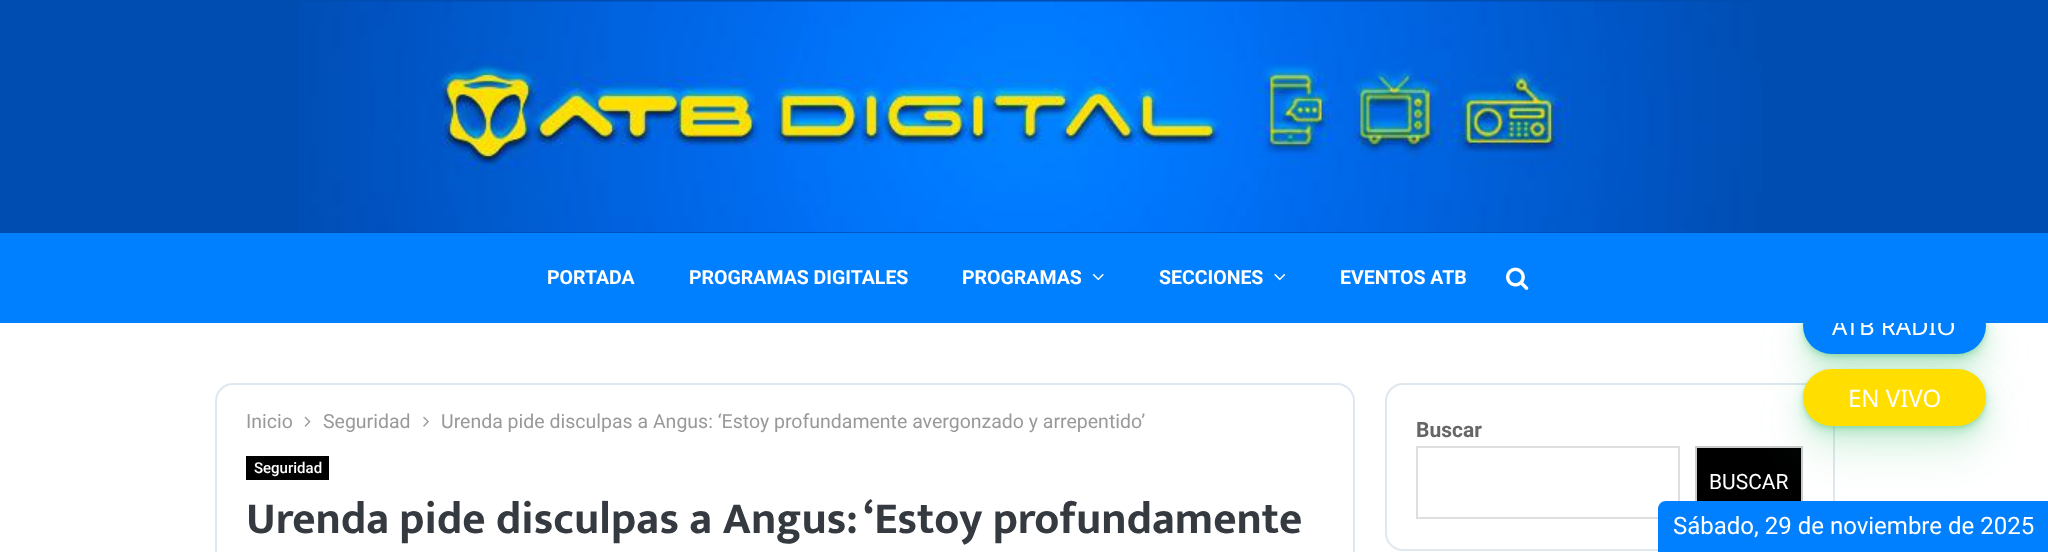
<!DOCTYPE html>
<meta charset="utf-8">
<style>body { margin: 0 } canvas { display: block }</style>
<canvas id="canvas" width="2048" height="552"></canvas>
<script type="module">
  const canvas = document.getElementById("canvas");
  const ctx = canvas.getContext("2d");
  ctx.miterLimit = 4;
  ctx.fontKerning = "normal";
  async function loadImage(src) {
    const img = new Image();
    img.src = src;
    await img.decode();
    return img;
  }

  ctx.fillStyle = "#ffffff";
  ctx.fillRect(0, 0, 2048, 552);
  ctx.fillStyle = "#004db1";
  ctx.fillRect(0, 0, 2048, 233);
  ctx.drawImage(await loadImage("img1.png"), 299, 1, 1463, 232);
  ctx.beginPath();
  ctx.roundRect(1386, 384, 448, 166, 17);
  ctx.strokeStyle = "#dfe7ef";
  ctx.lineWidth = 2;
  ctx.stroke();
  ctx.fillStyle = "#000000";
  ctx.fillRect(1697, 448, 104, 53);
  ctx.strokeStyle = "#cccccc";
  ctx.strokeRect(1696, 447, 106, 71);
  ctx.fillStyle = "rgba(44, 187, 99, 0.15)";
  ctx.filter = "blur(24px)";
  ctx.beginPath();
  ctx.roundRect(1803, 321, 183, 57, 28.5);
  ctx.fill();
  ctx.filter = "none";
  ctx.filter = "blur(12px)";
  ctx.beginPath();
  ctx.roundRect(1803, 309, 183, 57, 28.5);
  ctx.fill();
  ctx.filter = "none";
  ctx.filter = "blur(6px)";
  ctx.beginPath();
  ctx.roundRect(1803, 303, 183, 57, 28.5);
  ctx.fill();
  ctx.filter = "none";
  ctx.filter = "blur(3px)";
  ctx.beginPath();
  ctx.roundRect(1803, 300, 183, 57, 28.5);
  ctx.fill();
  ctx.filter = "none";
  ctx.filter = "blur(1.5px)";
  ctx.beginPath();
  ctx.roundRect(1803, 299, 183, 57, 28.5);
  ctx.fill();
  ctx.filter = "none";
  ctx.fillStyle = "#0080ff";
  ctx.beginPath();
  ctx.roundRect(1803, 297, 183, 57, 28.5);
  ctx.fill();
  ctx.font = "24px Noto Sans";
  ctx.fillStyle = "#ffffff";
  ctx.fillText("ATB RADIO", 1832, 335);
  ctx.fillStyle = "rgba(44, 187, 99, 0.15)";
  ctx.filter = "blur(24px)";
  ctx.beginPath();
  ctx.roundRect(1803, 393, 183, 57, 28.5);
  ctx.fill();
  ctx.filter = "none";
  ctx.fillStyle = "#0080ff";
  ctx.fillRect(0, 233, 2048, 90);
  ctx.font = "bold 19.5px Roboto";
  ctx.fillStyle = "#ffffff";
  ctx.fillText("PORTADA", 547, 284);
  ctx.fillText("PROGRAMAS DIGITALES", 689, 284);
  ctx.fillText("PROGRAMAS", 962, 284);
  ctx.drawImage(await loadImage("img2.png"), 1092, 273, 12, 8);
  ctx.fillText("SECCIONES", 1159, 284);
  ctx.drawImage(await loadImage("img3.png"), 1274, 273, 12, 8);
  ctx.fillText("EVENTOS ATB", 1340, 284);
  ctx.drawImage(await loadImage("img4.png"), 1506, 267, 23, 23);
  ctx.beginPath();
  ctx.roundRect(216, 384, 1138, 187, 17);
  ctx.strokeStyle = "#dfe7ef";
  ctx.stroke();
  ctx.font = "19.5px Roboto";
  ctx.fillStyle = "#999999";
  ctx.fillText("Inicio", 246, 428);
  ctx.drawImage(await loadImage("img5.png"), 304, 416, 7, 11);
  ctx.fillText("Seguridad", 323, 428);
  ctx.drawImage(await loadImage("img6.png"), 423, 416, 6, 11);
  ctx.fillText("Urenda pide disculpas a Angus: ‘Estoy profundamente avergonzado y arrepentido’", 441, 428);
  ctx.fillStyle = "#000000";
  ctx.fillRect(246, 456, 83, 24);
  ctx.font = "500 15px Roboto";
  ctx.fillStyle = "#ffffff";
  ctx.fillText("Seguridad", 254, 473);
  ctx.font = "bold 45px Mukta Vaani";
  ctx.fillStyle = "#343a40";
  ctx.fillText("Urenda pide disculpas a Angus: ‘Estoy profundamente", 246, 533);
  ctx.font = "bold 21px Roboto";
  ctx.fillStyle = "#666666";
  ctx.fillText("Buscar", 1416, 437);
  ctx.strokeStyle = "#dedede";
  ctx.strokeRect(1417, 447, 262, 71);
  ctx.font = "21px Roboto";
  ctx.fillStyle = "#ffffff";
  ctx.fillText("BUSCAR", 1709, 489);
  ctx.fillStyle = "rgba(44, 187, 99, 0.15)";
  ctx.filter = "blur(12px)";
  ctx.beginPath();
  ctx.roundRect(1803, 381, 183, 57, 28.5);
  ctx.fill();
  ctx.filter = "none";
  ctx.filter = "blur(6px)";
  ctx.beginPath();
  ctx.roundRect(1803, 375, 183, 57, 28.5);
  ctx.fill();
  ctx.filter = "none";
  ctx.filter = "blur(3px)";
  ctx.beginPath();
  ctx.roundRect(1803, 372, 183, 57, 28.5);
  ctx.fill();
  ctx.filter = "none";
  ctx.filter = "blur(1.5px)";
  ctx.beginPath();
  ctx.roundRect(1803, 371, 183, 57, 28.5);
  ctx.fill();
  ctx.filter = "none";
  ctx.fillStyle = "#ffde00";
  ctx.beginPath();
  ctx.roundRect(1803, 369, 183, 57, 28.5);
  ctx.fill();
  ctx.font = "24px Noto Sans";
  ctx.fillStyle = "#ffffff";
  ctx.fillText("EN VIVO", 1848, 407);
  ctx.fillStyle = "#0080ff";
  ctx.beginPath();
  ctx.moveTo(1666, 501);
  ctx.lineTo(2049, 501);
  ctx.lineTo(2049, 552);
  ctx.lineTo(1658, 552);
  ctx.lineTo(1658, 509);
  ctx.bezierCurveTo(1658, 504.5, 1661.5, 501, 1666, 501);
  ctx.closePath();
  ctx.fill();
  ctx.font = "24px Roboto";
  ctx.fillStyle = "#ffffff";
  ctx.fillText("Sábado, 29 de noviembre de 2025", 1673, 534);
</script>
